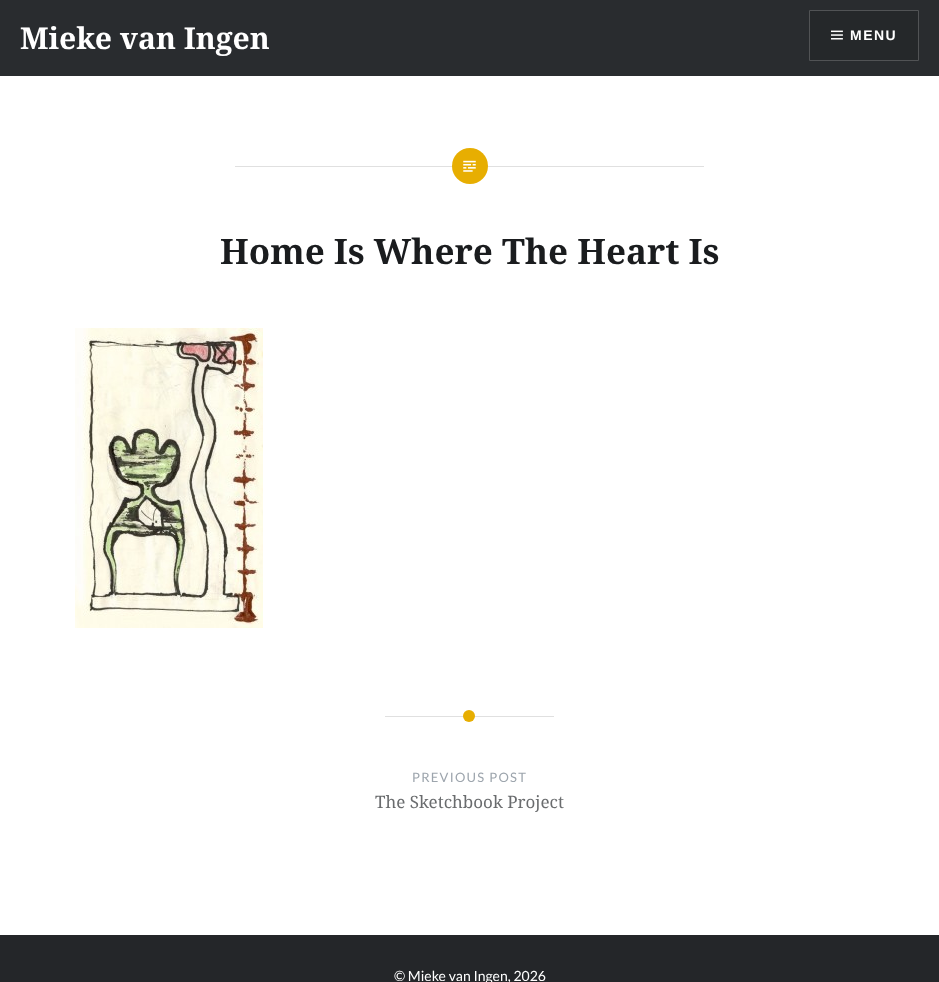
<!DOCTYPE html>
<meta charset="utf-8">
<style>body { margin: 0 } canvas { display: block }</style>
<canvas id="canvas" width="939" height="982"></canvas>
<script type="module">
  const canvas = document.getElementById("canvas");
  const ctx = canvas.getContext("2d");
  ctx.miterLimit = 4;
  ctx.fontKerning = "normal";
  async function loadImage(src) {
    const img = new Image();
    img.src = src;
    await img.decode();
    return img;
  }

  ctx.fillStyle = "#ffffff";
  ctx.fillRect(0, 0, 939, 982);
  ctx.fillStyle = "#292c2f";
  ctx.fillRect(0, 0, 939, 76);
  ctx.font = "bold 30px Noto Serif";
  ctx.fillStyle = "#ffffff";
  ctx.fillText("Mieke van Ingen", 20, 49);
  ctx.fillStyle = "#25282a";
  ctx.beginPath();
  ctx.rect(809.5, 10.5, 109, 50);
  ctx.fill();
  ctx.strokeStyle = "#515355";
  ctx.stroke();
  ctx.drawImage(await loadImage("img1.png"), 831, 30, 12, 10);
  ctx.letterSpacing = "1.5px";
  ctx.font = "bold 14px Liberation Sans";
  ctx.fillStyle = "#ffffff";
  ctx.fillText("MENU", 850, 40);
  ctx.fillStyle = "#e0e0e0";
  ctx.fillRect(235, 166, 469, 1);
  ctx.fillStyle = "#e7ae01";
  ctx.beginPath();
  ctx.arc(470, 166, 18, 0, Math.PI * 2);
  ctx.fill();
  ctx.drawImage(await loadImage("img2.png"), 463, 160, 13, 12);
  ctx.drawImage(await loadImage("img3.png"), 75, 328, 188, 300);
  ctx.letterSpacing = "0px";
  ctx.font = "bold 35px Noto Serif";
  ctx.fillStyle = "#1a1c1e";
  ctx.fillText("Home Is Where The Heart Is", 220, 264);
  ctx.fillStyle = "#e0e0e0";
  ctx.fillRect(385, 716, 169, 1);
  ctx.fillStyle = "#e7ae01";
  ctx.beginPath();
  ctx.arc(469, 716, 6, 0, Math.PI * 2);
  ctx.fill();
  ctx.letterSpacing = "1.25px";
  ctx.font = "13px Lato";
  ctx.fillStyle = "#9da5ad";
  ctx.fillText("PREVIOUS POST", 412, 782);
  ctx.letterSpacing = "0px";
  ctx.font = "17px Noto Serif";
  ctx.fillStyle = "#6a6c6e";
  ctx.fillText("The Sketchbook Project", 375, 808);
  ctx.fillStyle = "#242629";
  ctx.fillRect(0, 935, 939, 47);
  ctx.font = "14px Lato";
  ctx.fillStyle = "#ffffff";
  ctx.fillText("© Mieke van Ingen, 2026", 394, 981);
</script>
